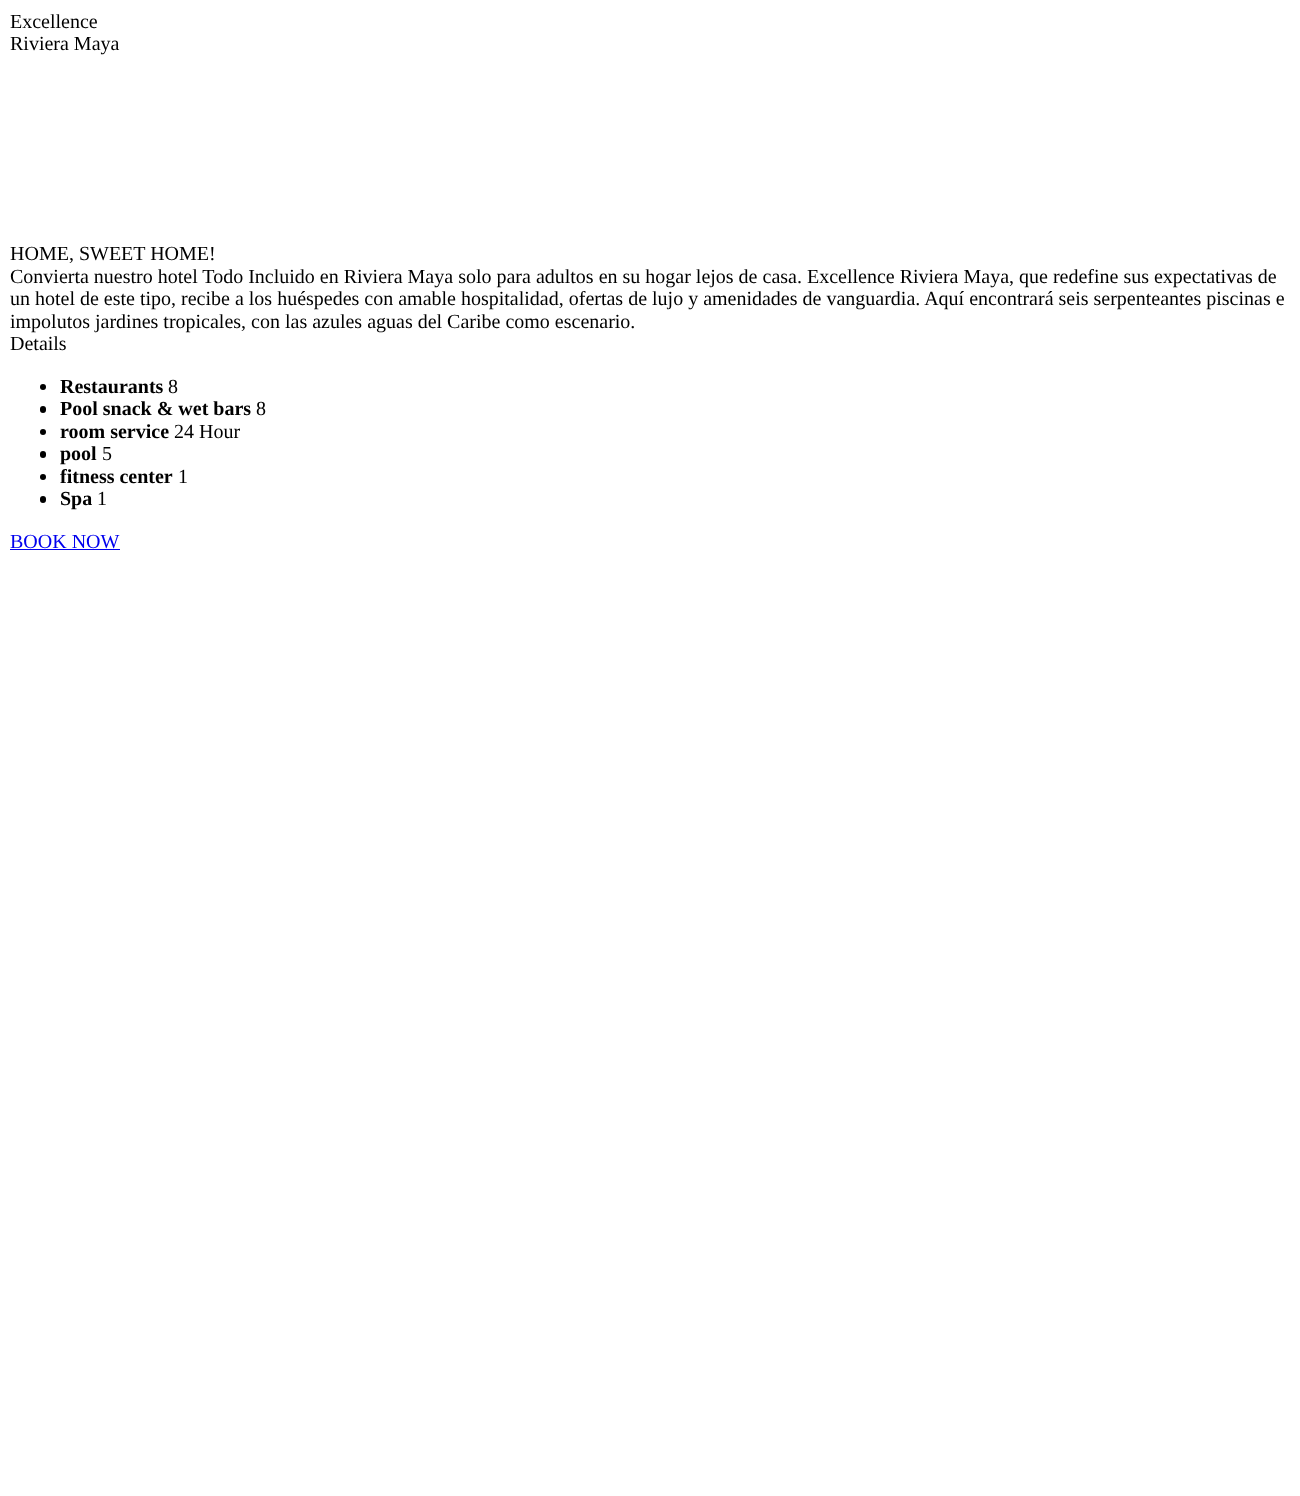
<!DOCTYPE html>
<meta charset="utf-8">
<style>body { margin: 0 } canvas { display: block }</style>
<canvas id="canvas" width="1300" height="1496"></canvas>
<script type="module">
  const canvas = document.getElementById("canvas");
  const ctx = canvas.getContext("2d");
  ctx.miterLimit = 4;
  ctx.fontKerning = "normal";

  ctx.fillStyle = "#ffffff";
  ctx.fillRect(0, 0, 1300, 1496);
  ctx.font = "20px Liberation Serif";
  ctx.fillStyle = "#000000";
  ctx.fillText("Excellence", 10, 28);
  ctx.fillText("Riviera Maya", 10, 50);
  ctx.fillText("HOME, SWEET HOME!", 10, 260);
  ctx.fillText("Convierta nuestro hotel Todo Incluido en Riviera Maya solo para adultos en su hogar lejos de casa. Excellence Riviera Maya, que redefine sus expectativas de", 10, 283);
  ctx.fillText("un hotel de este tipo, recibe a los huéspedes con amable hospitalidad, ofertas de lujo y amenidades de vanguardia. Aquí encontrará seis serpenteantes piscinas e", 10, 305);
  ctx.fillText("impolutos jardines tropicales, con las azules aguas del Caribe como escenario.", 10, 328);
  ctx.fillText("Details", 10, 350);
  ctx.beginPath();
  ctx.arc(43, 387, 3, 0, Math.PI * 2);
  ctx.fill();
  ctx.font = "bold 20px Liberation Serif";
  ctx.fillText("Restaurants", 60, 393);
  ctx.font = "20px Liberation Serif";
  ctx.fillText("8", 168, 393);
  ctx.beginPath();
  ctx.roundRect(40, 406, 6, 7, 3);
  ctx.fill();
  ctx.font = "bold 20px Liberation Serif";
  ctx.fillText("Pool snack & wet bars", 60, 415);
  ctx.font = "20px Liberation Serif";
  ctx.fillText("8", 256, 415);
  ctx.beginPath();
  ctx.arc(43, 432, 3, 0, Math.PI * 2);
  ctx.fill();
  ctx.font = "bold 20px Liberation Serif";
  ctx.fillText("room service", 60, 438);
  ctx.font = "20px Liberation Serif";
  ctx.fillText("24 Hour", 174, 438);
  ctx.beginPath();
  ctx.roundRect(40, 451, 6, 7, 3);
  ctx.fill();
  ctx.font = "bold 20px Liberation Serif";
  ctx.fillText("pool", 60, 460);
  ctx.font = "20px Liberation Serif";
  ctx.fillText("5", 102, 460);
  ctx.beginPath();
  ctx.arc(43, 477, 3, 0, Math.PI * 2);
  ctx.fill();
  ctx.font = "bold 20px Liberation Serif";
  ctx.fillText("fitness center", 60, 483);
  ctx.font = "20px Liberation Serif";
  ctx.fillText("1", 178, 483);
  ctx.beginPath();
  ctx.roundRect(40, 496, 6, 7, 3);
  ctx.fill();
  ctx.font = "bold 20px Liberation Serif";
  ctx.fillText("Spa", 60, 505);
  ctx.font = "20px Liberation Serif";
  ctx.fillText("1", 97, 505);
  ctx.fillStyle = "#0000ee";
  ctx.fillText("BOOK NOW", 10, 548);
  ctx.fillRect(10, 549, 110, 1);
</script>
